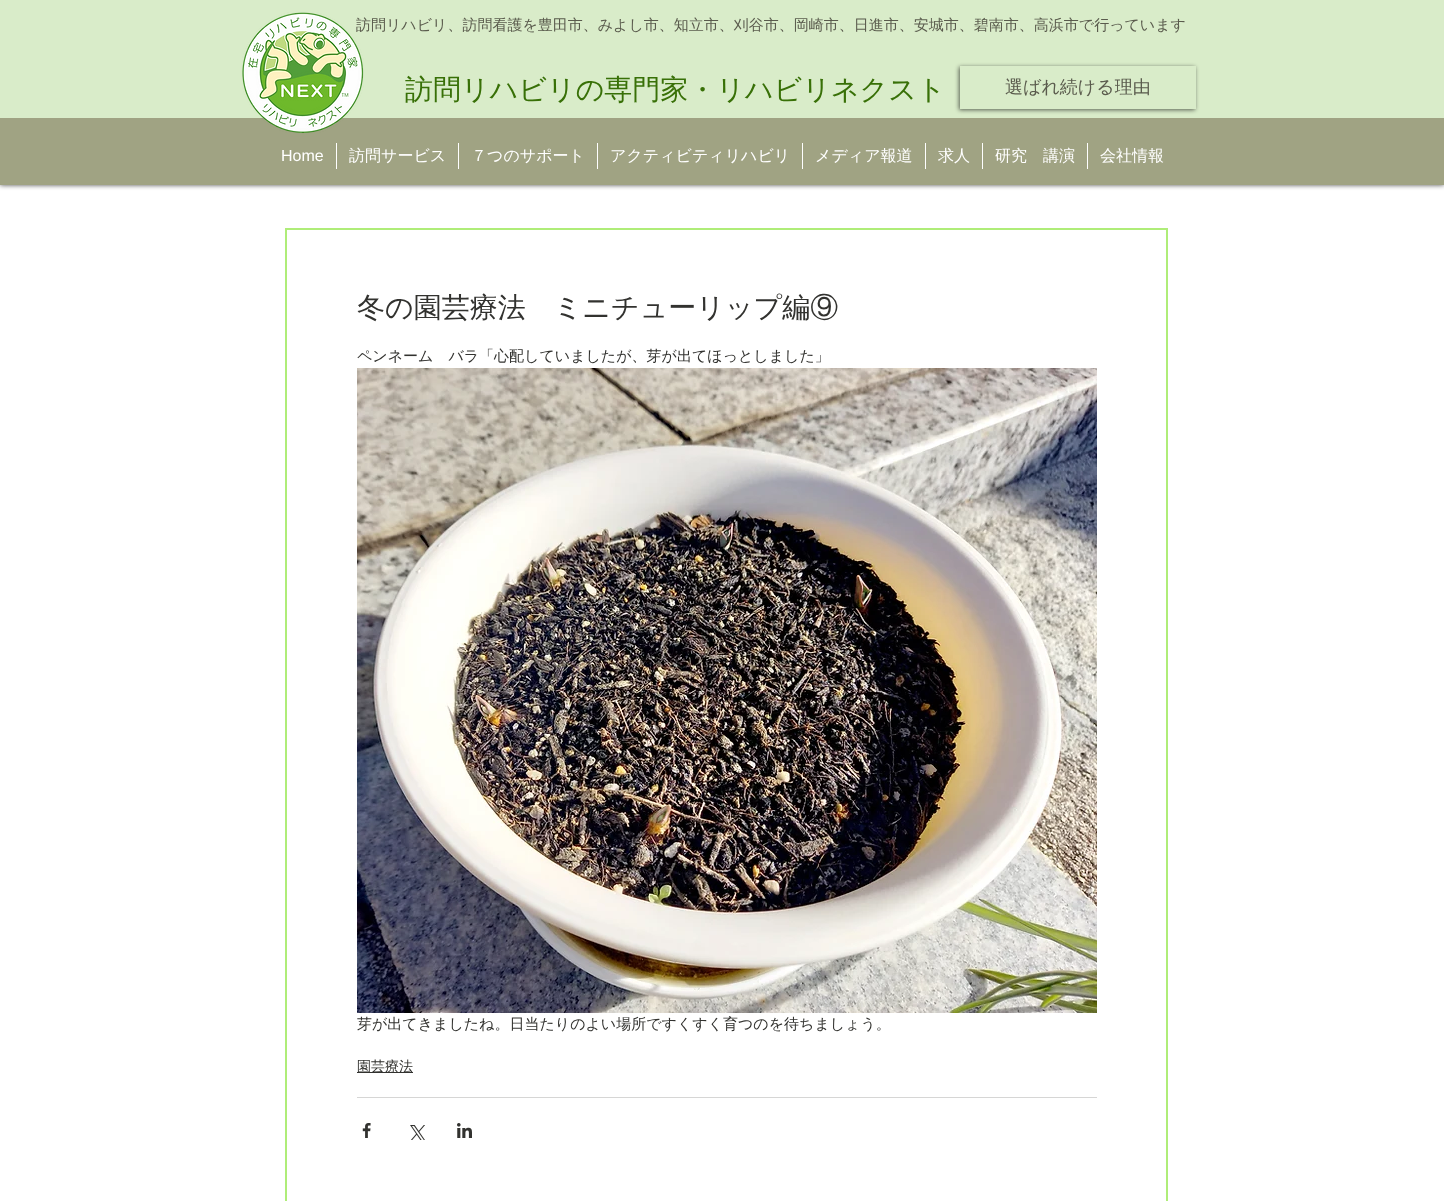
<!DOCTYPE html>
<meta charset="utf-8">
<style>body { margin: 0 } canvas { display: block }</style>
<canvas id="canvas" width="1444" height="1201"></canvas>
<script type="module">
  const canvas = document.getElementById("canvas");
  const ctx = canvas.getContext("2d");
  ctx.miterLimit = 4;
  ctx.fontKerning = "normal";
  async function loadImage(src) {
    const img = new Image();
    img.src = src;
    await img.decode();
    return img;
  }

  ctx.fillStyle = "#ffffff";
  ctx.fillRect(0, 0, 1444, 1201);
  ctx.fillStyle = "rgba(0, 0, 0, 0.7)";
  ctx.filter = "blur(2.5px)";
  ctx.beginPath();
  ctx.rect(0, 0, 1444, 185);
  ctx.fill();
  ctx.filter = "none";
  ctx.fillStyle = "#a0a383";
  ctx.fillRect(0, 118, 1444, 67);
  ctx.fillStyle = "#d9ecc9";
  ctx.fillRect(0, 0, 1444, 118);
  ctx.font = "500 15px WenQuanYi Zen Hei";
  ctx.fillStyle = "#5a5b4d";
  ctx.fillText("訪問リハビリ、訪問看護を豊田市、みよし市、知立市、刈谷市、岡崎市、日進市、安城市、碧南市、高浜市で行っています", 356, 30);
  ctx.drawImage(await loadImage("img1.png"), 242, 12, 122, 121);
  ctx.font = "500 28px WenQuanYi Zen Hei";
  ctx.fillStyle = "#387007";
  ctx.fillText("訪問リハビリの専門家・リハビリネクスト", 405, 99);
  ctx.save();
  ctx.beginPath();
  ctx.moveTo(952, 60);
  ctx.lineTo(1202, 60);
  ctx.lineTo(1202, 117);
  ctx.lineTo(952, 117);
  ctx.closePath();
  ctx.moveTo(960, 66);
  ctx.lineTo(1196, 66);
  ctx.lineTo(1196, 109);
  ctx.lineTo(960, 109);
  ctx.closePath();
  ctx.clip("evenodd");
  ctx.fillStyle = "rgba(0, 0, 0, 0.6)";
  ctx.filter = "blur(2px)";
  ctx.beginPath();
  ctx.rect(959, 67, 236, 43);
  ctx.fill();
  ctx.filter = "none";
  ctx.restore();
  ctx.font = "500 18px WenQuanYi Zen Hei";
  ctx.fillStyle = "#5a5b4d";
  ctx.fillText("選ばれ続ける理由", 1005, 93);
  ctx.font = "16px Liberation Sans";
  ctx.fillStyle = "#ffffff";
  ctx.fillText("Home", 281, 161);
  ctx.fillRect(336, 143, 1, 26);
  ctx.font = "500 16px WenQuanYi Zen Hei";
  ctx.fillText("訪問サービス", 349, 161);
  ctx.fillRect(458, 143, 1, 26);
  ctx.fillText("７つのサポート", 471, 161);
  ctx.fillRect(597, 143, 1, 26);
  ctx.fillText("アクティビティリハビリ", 610, 161);
  ctx.fillRect(802, 143, 1, 26);
  ctx.fillText("メディア報道", 815, 161);
  ctx.fillRect(925, 143, 1, 26);
  ctx.fillText("求人", 938, 161);
  ctx.fillRect(982, 143, 1, 26);
  ctx.fillText("研究　講演", 995, 161);
  ctx.fillRect(1087, 143, 1, 26);
  ctx.fillText("会社情報", 1100, 161);
  ctx.strokeStyle = "#afed79";
  ctx.lineWidth = 2;
  ctx.strokeRect(286, 229, 881, 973);
  ctx.font = "500 28px WenQuanYi Zen Hei";
  ctx.fillStyle = "#32322f";
  ctx.fillText("冬の園芸療法　ミニチューリップ編⑨", 357, 317);
  ctx.font = "500 15px WenQuanYi Zen Hei";
  ctx.fillText("ペンネーム　バラ「心配していましたが、芽が出てほっとしました」", 357, 361);
  ctx.drawImage(await loadImage("img2.png"), 357, 368, 740, 645);
  ctx.fillText("芽が出てきましたね。日当たりのよい場所ですくすく育つのを待ちましょう。", 357, 1029);
  ctx.fillRect(357, 1072, 56, 1);
  ctx.font = "500 14px WenQuanYi Zen Hei";
  ctx.fillText("園芸療法", 357, 1071);
  ctx.fillStyle = "#d6d6d5";
  ctx.fillRect(357, 1097, 740, 1);
  ctx.drawImage(await loadImage("img3.png"), 362, 1123, 9, 15);
  ctx.drawImage(await loadImage("img4.png"), 410, 1125, 15, 15);
  ctx.drawImage(await loadImage("img5.png"), 457, 1123, 15, 15);
</script>
